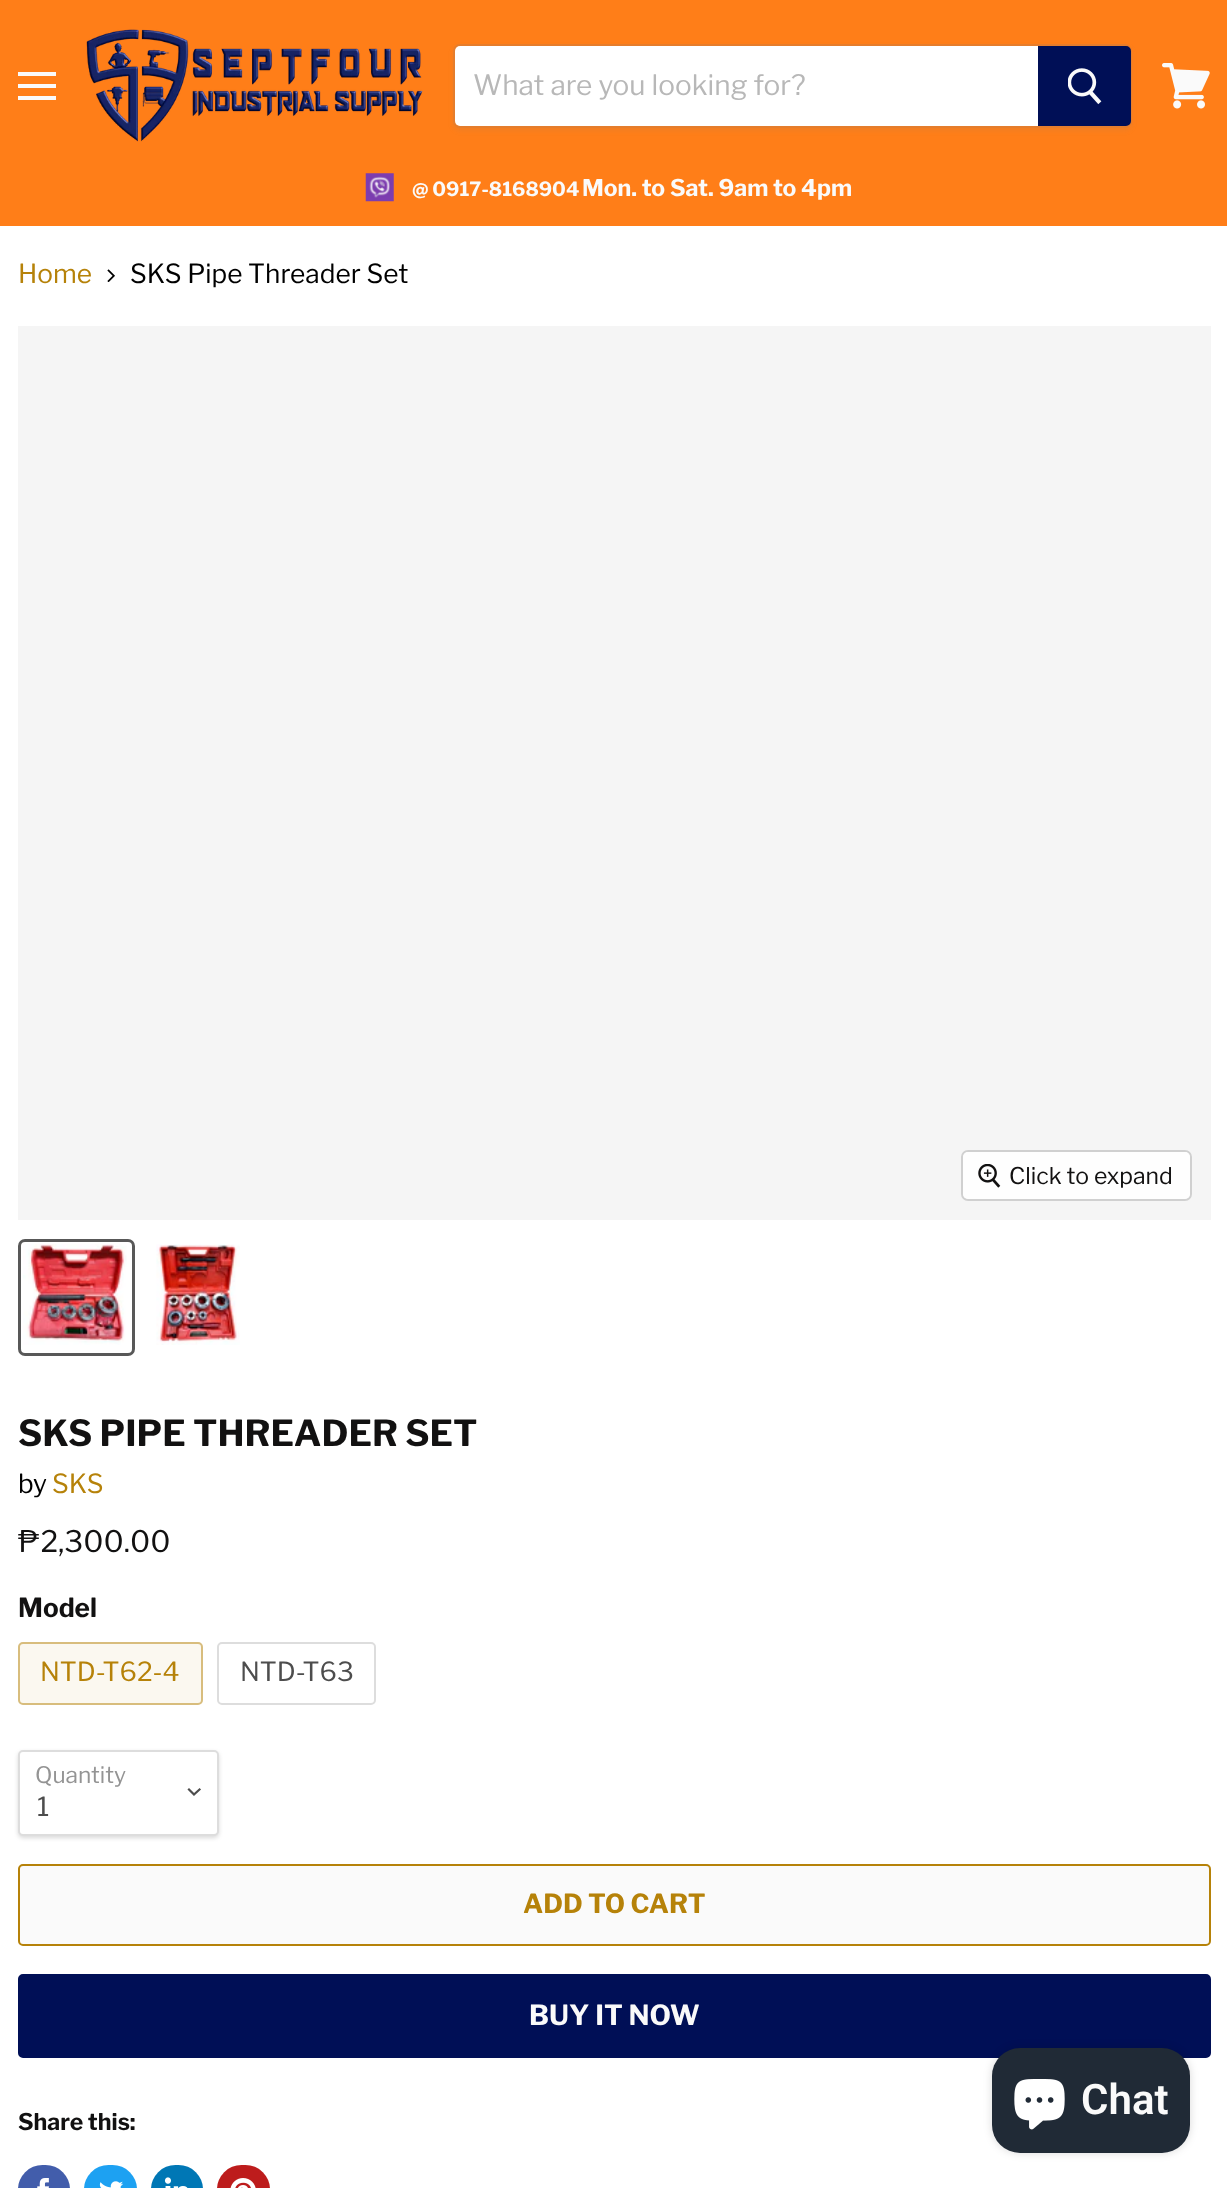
<!DOCTYPE html>
<meta charset="utf-8">
<style>body { margin: 0 } canvas { display: block }</style>
<canvas id="canvas" width="1227" height="2188"></canvas>
<script type="module">
  const canvas = document.getElementById("canvas");
  const ctx = canvas.getContext("2d");
  ctx.miterLimit = 4;
  ctx.fontKerning = "normal";
  async function loadImage(src) {
    const img = new Image();
    img.src = src;
    await img.decode();
    return img;
  }

  ctx.fillStyle = "#ffffff";
  ctx.fillRect(0, 0, 1227, 2188);
  ctx.fillStyle = "#ff7e18";
  ctx.fillRect(0, 0, 1227, 226);
  ctx.fillStyle = "#fafafa";
  ctx.fillRect(18, 72, 38, 4);
  ctx.fillRect(18, 84, 38, 4);
  ctx.fillRect(18, 96, 38, 4);
  ctx.drawImage(await loadImage("img1.png"), 86, 29, 337, 113);
  ctx.save();
  ctx.beginPath();
  ctx.moveTo(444, 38);
  ctx.lineTo(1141, 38);
  ctx.lineTo(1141, 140);
  ctx.lineTo(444, 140);
  ctx.closePath();
  ctx.moveTo(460, 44);
  ctx.lineTo(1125, 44);
  ctx.bezierCurveTo(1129, 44, 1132, 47, 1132, 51);
  ctx.lineTo(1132, 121);
  ctx.bezierCurveTo(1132, 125, 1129, 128, 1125, 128);
  ctx.lineTo(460, 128);
  ctx.bezierCurveTo(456, 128, 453, 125, 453, 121);
  ctx.lineTo(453, 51);
  ctx.bezierCurveTo(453, 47, 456, 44, 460, 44);
  ctx.closePath();
  ctx.clip("evenodd");
  ctx.fillStyle = "rgba(127, 127, 127, 0.11)";
  ctx.filter = "blur(2.5px)";
  ctx.beginPath();
  ctx.roundRect(453, 47, 679, 84, 7);
  ctx.fill();
  ctx.filter = "none";
  ctx.restore();
  ctx.beginPath();
  ctx.roundRect(454, 45, 677, 82, 6);
  ctx.strokeStyle = "rgba(127, 127, 127, 0.2)";
  ctx.lineWidth = 2;
  ctx.stroke();
  ctx.fillStyle = "#ffffff";
  ctx.beginPath();
  ctx.roundRect(455, 46, 583, 80, [5, 0, 0, 5]);
  ctx.fill();
  ctx.font = "28px Libre Franklin";
  ctx.fillStyle = "#b8b8b8";
  ctx.fillText("What are you looking for?", 473, 95);
  ctx.fillStyle = "#000f56";
  ctx.beginPath();
  ctx.roundRect(1039, 47, 91, 78, [0, 4, 4, 0]);
  ctx.fill();
  ctx.strokeStyle = "#000f56";
  ctx.stroke();
  ctx.drawImage(await loadImage("img2.png"), 1068, 68, 34, 37);
  ctx.drawImage(await loadImage("img3.png"), 365, 173, 29, 29);
  ctx.font = "bold 19.5px Libre Franklin";
  ctx.fillStyle = "#fafafa";
  ctx.fillText("@ 0917-8168904", 412, 196);
  ctx.font = "bold 23px Libre Franklin";
  ctx.fillText("Mon. to Sat. 9am to 4pm", 582, 196);
  ctx.drawImage(await loadImage("img4.png"), 1162, 63, 48, 46);
  ctx.font = "26.25px Libre Franklin";
  ctx.fillStyle = "#b68209";
  ctx.fillText("Home", 18, 283);
  ctx.drawImage(await loadImage("img5.png"), 107, 269, 8, 13);
  ctx.fillStyle = "#000000";
  ctx.fillText("SKS Pipe Threader Set", 130, 283);
  ctx.fillStyle = "#f5f5f5";
  ctx.fillRect(18, 326, 1193, 894);
  ctx.beginPath();
  ctx.roundRect(962, 1151, 229, 49, 6);
  ctx.strokeStyle = "#d0d0d0";
  ctx.stroke();
  ctx.fillStyle = "rgba(255, 255, 255, 0.9)";
  ctx.beginPath();
  ctx.roundRect(963, 1152, 227, 47, 5);
  ctx.fill();
  ctx.drawImage(await loadImage("img6.png"), 978, 1164, 23, 24);
  ctx.font = "23px Libre Franklin";
  ctx.fillStyle = "#121111";
  ctx.fillText("Click to expand", 1009, 1184);
  ctx.beginPath();
  ctx.roundRect(19.5, 1240.5, 114, 114, 5.5);
  ctx.strokeStyle = "#585858";
  ctx.lineWidth = 3;
  ctx.stroke();
  ctx.drawImage(await loadImage("img7.png"), 23, 1244, 104, 101);
  ctx.drawImage(await loadImage("img8.png"), 156, 1244, 84, 101);
  ctx.font = "bold 35.9px Libre Franklin";
  ctx.fillText("SKS PIPE THREADER SET", 18, 1446);
  ctx.font = "26.25px Libre Franklin";
  ctx.fillStyle = "#000000";
  ctx.fillText("by", 18, 1493);
  ctx.fillStyle = "#b68209";
  ctx.fillText("SKS", 52, 1493);
  ctx.font = "29.5px Libre Franklin";
  ctx.fillStyle = "#121111";
  ctx.fillText("₱2,300.00", 18, 1552);
  ctx.font = "bold 26.25px Libre Franklin";
  ctx.fillText("Model", 18, 1617);
  ctx.fillStyle = "#fbf8f0";
  ctx.beginPath();
  ctx.roundRect(18, 1642, 185, 63, 5);
  ctx.fill();
  ctx.beginPath();
  ctx.roundRect(19, 1643, 183, 61, 4);
  ctx.strokeStyle = "rgba(182, 130, 9, 0.5)";
  ctx.lineWidth = 2;
  ctx.stroke();
  ctx.font = "26.25px Libre Franklin";
  ctx.fillStyle = "#b68209";
  ctx.fillText("NTD-T62-4", 40, 1681);
  ctx.beginPath();
  ctx.roundRect(218, 1643, 157, 61, 4);
  ctx.strokeStyle = "#dddddd";
  ctx.stroke();
  ctx.fillStyle = "#4d4d4d";
  ctx.fillText("NTD-T63", 240, 1681);
  ctx.fillStyle = "rgba(0, 0, 0, 0.15)";
  ctx.filter = "blur(2px)";
  ctx.beginPath();
  ctx.roundRect(18, 1752, 201, 86, 5);
  ctx.fill();
  ctx.filter = "none";
  ctx.fillStyle = "#ffffff";
  ctx.beginPath();
  ctx.roundRect(19, 1751, 199, 84, 4);
  ctx.fill();
  ctx.stroke();
  ctx.font = "22.75px Libre Franklin";
  ctx.fillStyle = "#949494";
  ctx.fillText("Quantity", 35, 1783);
  ctx.beginPath();
  ctx.moveTo(194, 1794.5);
  ctx.lineTo(199.5, 1789.5);
  ctx.moveTo(194, 1794.5);
  ctx.lineTo(189, 1789.5);
  ctx.strokeStyle = "#4d4d4d";
  ctx.lineWidth = 2.2;
  ctx.lineCap = "square";
  ctx.stroke();
  ctx.font = "26.25px Libre Franklin";
  ctx.fillStyle = "#4d4d4d";
  ctx.fillText("1", 37, 1816);
  ctx.fillStyle = "#fafafa";
  ctx.beginPath();
  ctx.roundRect(19, 1865, 1191, 80, 4);
  ctx.fill();
  ctx.strokeStyle = "#b68209";
  ctx.lineWidth = 2;
  ctx.stroke();
  ctx.font = "bold 26.25px Libre Franklin";
  ctx.fillStyle = "#b68209";
  ctx.fillText("ADD TO CART", 523, 1913);
  ctx.fillStyle = "#000f56";
  ctx.beginPath();
  ctx.roundRect(19, 1975, 1191, 82, 4);
  ctx.fill();
  ctx.strokeStyle = "#000f56";
  ctx.stroke();
  ctx.font = "bold 27.75px Libre Franklin";
  ctx.fillStyle = "#fafafa";
  ctx.fillText("BUY IT NOW", 529, 2025);
  ctx.font = "bold 23px Libre Franklin";
  ctx.fillStyle = "#121111";
  ctx.fillText("Share this:", 18, 2130);
  ctx.fillStyle = "#425dab";
  ctx.beginPath();
  ctx.roundRect(18, 2165, 52, 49, 26);
  ctx.fill();
  ctx.drawImage(await loadImage("img9.png"), 37, 2178, 12, 10);
  ctx.fillStyle = "#1da1f2";
  ctx.beginPath();
  ctx.roundRect(84, 2165, 53, 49, 26);
  ctx.fill();
  ctx.drawImage(await loadImage("img10.png"), 99, 2181, 25, 7);
  ctx.fillStyle = "#0077b5";
  ctx.beginPath();
  ctx.roundRect(151, 2165, 52, 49, 26);
  ctx.fill();
  ctx.drawImage(await loadImage("img11.png"), 164, 2177, 24, 11);
  ctx.fillStyle = "#bd1c1c";
  ctx.beginPath();
  ctx.roundRect(217, 2165, 53, 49, 26);
  ctx.fill();
  ctx.drawImage(await loadImage("img12.png"), 230, 2178, 26, 10);
  ctx.fillStyle = "rgba(0, 0, 0, 0.15)";
  ctx.filter = "blur(4.5px)";
  ctx.beginPath();
  ctx.roundRect(992, 2048, 198, 105, 28);
  ctx.fill();
  ctx.filter = "none";
  ctx.fillStyle = "#202a36";
  ctx.beginPath();
  ctx.roundRect(992, 2048, 198, 105, 28);
  ctx.fill();
  ctx.drawImage(await loadImage("img13.png"), 1014, 2079, 51, 51);
  ctx.font = "600 42px Roboto";
  ctx.fillStyle = "#fafafa";
  ctx.fillText("Chat", 1081, 2114);
</script>
